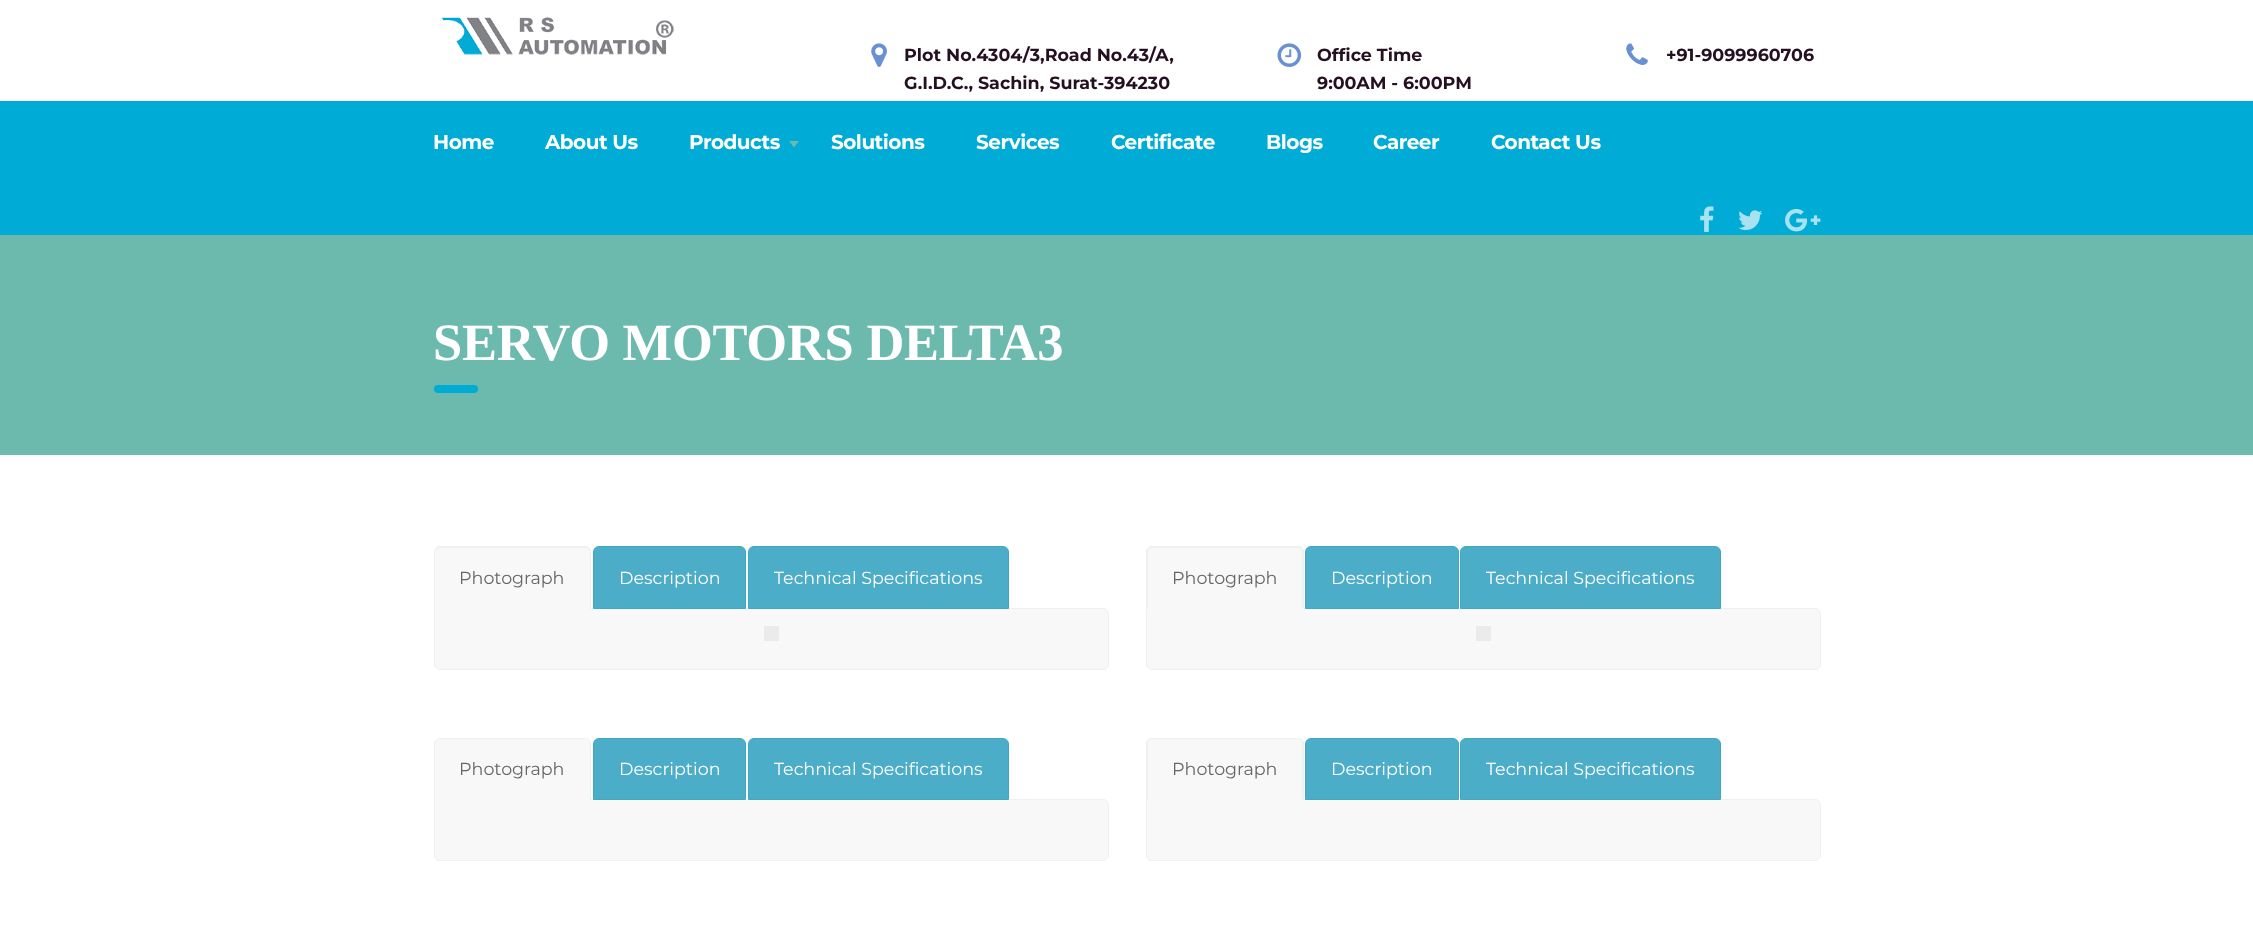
<!DOCTYPE html>
<meta charset="utf-8">
<style>body { margin: 0 } canvas { display: block }</style>
<canvas id="canvas" width="2253" height="925"></canvas>
<script type="module">
  const canvas = document.getElementById("canvas");
  const ctx = canvas.getContext("2d");
  ctx.miterLimit = 4;
  ctx.fontKerning = "normal";
  async function loadImage(src) {
    const img = new Image();
    img.src = src;
    await img.decode();
    return img;
  }

  ctx.fillStyle = "#ffffff";
  ctx.fillRect(0, 0, 2253, 925);
  ctx.drawImage(await loadImage("img1.png"), 441, 17, 233, 38);
  ctx.drawImage(await loadImage("img2.png"), 871, 43, 16, 24);
  ctx.font = "bold 17.5px Montserrat";
  ctx.fillStyle = "#251021";
  ctx.fillText("Plot No.4304/3,Road No.43/A,", 904, 61);
  ctx.fillText("G.I.D.C., Sachin, Surat-394230", 904, 89);
  ctx.drawImage(await loadImage("img3.png"), 1277, 43, 25, 24);
  ctx.fillText("Office Time", 1317, 61);
  ctx.fillText("9:00AM - 6:00PM", 1317, 89);
  ctx.drawImage(await loadImage("img4.png"), 1626, 43, 22, 22);
  ctx.fillText("+91-9099960706", 1666, 61);
  ctx.fillStyle = "#00abd6";
  ctx.fillRect(0, 101, 2253, 134);
  ctx.letterSpacing = "-0.5px";
  ctx.font = "bold 20px Montserrat";
  ctx.fillStyle = "#ffffff";
  ctx.fillText("Home", 433, 149);
  ctx.fillText("About Us", 545, 149);
  ctx.fillText("Products", 689, 149);
  ctx.fillStyle = "#6cbaae";
  ctx.beginPath();
  ctx.moveTo(789, 141);
  ctx.lineTo(799, 141);
  ctx.lineTo(794, 147.5);
  ctx.closePath();
  ctx.fill();
  ctx.fillStyle = "#ffffff";
  ctx.fillText("Solutions", 831, 149);
  ctx.fillText("Services", 976, 149);
  ctx.fillText("Certificate", 1111, 149);
  ctx.fillText("Blogs", 1266, 149);
  ctx.fillText("Career", 1373, 149);
  ctx.fillText("Contact Us", 1491, 149);
  ctx.drawImage(await loadImage("img5.png"), 1700, 206, 14, 26);
  ctx.drawImage(await loadImage("img6.png"), 1738, 210, 25, 20);
  ctx.drawImage(await loadImage("img7.png"), 1785, 208, 36, 24);
  ctx.fillStyle = "#6cbaae";
  ctx.fillRect(0, 235, 2253, 220);
  ctx.letterSpacing = "-0.25px";
  ctx.font = "bold 52.5px Liberation Serif";
  ctx.fillStyle = "#ffffff";
  ctx.fillText("SERVO MOTORS DELTA3", 433, 360);
  ctx.fillStyle = "#00abd6";
  ctx.beginPath();
  ctx.roundRect(434, 385, 44, 8, 4);
  ctx.fill();
  ctx.fillStyle = "#f8f8f8";
  ctx.beginPath();
  ctx.roundRect(434.5, 608.5, 674, 61, [0, 5.5, 5.5, 5.5]);
  ctx.fill();
  ctx.strokeStyle = "#f0f0f0";
  ctx.stroke();
  ctx.beginPath();
  ctx.roundRect(434, 546, 157, 63, [6, 6, 0, 0]);
  ctx.fill();
  ctx.fillStyle = "#f0f0f0";
  ctx.beginPath();
  ctx.moveTo(440, 548);
  ctx.lineTo(437, 549);
  ctx.lineTo(436, 548);
  ctx.lineTo(438, 546);
  ctx.lineTo(587, 546);
  ctx.lineTo(589, 548);
  ctx.lineTo(588, 549);
  ctx.lineTo(585, 548);
  ctx.closePath();
  ctx.fill();
  ctx.beginPath();
  ctx.moveTo(589, 548);
  ctx.bezierCurveTo(590, 549, 591, 551, 591, 552);
  ctx.lineTo(591, 608);
  ctx.lineTo(590, 608);
  ctx.lineTo(590, 551);
  ctx.lineTo(588, 549);
  ctx.closePath();
  ctx.fill();
  ctx.beginPath();
  ctx.moveTo(434, 608);
  ctx.lineTo(434, 552);
  ctx.bezierCurveTo(434, 551, 435, 549, 436, 548);
  ctx.lineTo(437, 549);
  ctx.lineTo(435, 551);
  ctx.lineTo(435, 608);
  ctx.closePath();
  ctx.fill();
  ctx.letterSpacing = "0px";
  ctx.font = "17.5px Montserrat";
  ctx.fillStyle = "#666666";
  ctx.fillText("Photograph", 459, 584);
  ctx.fillStyle = "#f0f0f0";
  ctx.fillRect(434, 608, 1, 1);
  ctx.fillRect(590, 608, 1, 1);
  ctx.fillStyle = "#4cadc9";
  ctx.beginPath();
  ctx.roundRect(593.5, 546.5, 152, 62, [5.5, 5.5, 0, 0]);
  ctx.fill();
  ctx.strokeStyle = "#40a8c5";
  ctx.stroke();
  ctx.fillStyle = "#ffffff";
  ctx.fillText("Description", 619, 584);
  ctx.fillStyle = "#4cadc9";
  ctx.beginPath();
  ctx.roundRect(748.5, 546.5, 260, 62, [5.5, 5.5, 0, 0]);
  ctx.fill();
  ctx.stroke();
  ctx.fillStyle = "#ffffff";
  ctx.fillText("Technical Specifications", 774, 584);
  ctx.fillStyle = "#ebebeb";
  ctx.fillRect(764, 626, 15, 15);
  ctx.fillStyle = "#f8f8f8";
  ctx.beginPath();
  ctx.roundRect(434.5, 799.5, 674, 61, [0, 5.5, 5.5, 5.5]);
  ctx.fill();
  ctx.strokeStyle = "#f0f0f0";
  ctx.stroke();
  ctx.beginPath();
  ctx.roundRect(434, 738, 157, 62, [6, 6, 0, 0]);
  ctx.fill();
  ctx.fillStyle = "#f0f0f0";
  ctx.beginPath();
  ctx.moveTo(440, 738);
  ctx.bezierCurveTo(438, 738, 437, 739, 436, 740);
  ctx.lineTo(437, 740);
  ctx.bezierCurveTo(437, 739, 439, 739, 440, 739);
  ctx.lineTo(585, 739);
  ctx.bezierCurveTo(586, 739, 588, 739, 588, 740);
  ctx.lineTo(589, 740);
  ctx.bezierCurveTo(588, 739, 587, 738, 585, 738);
  ctx.closePath();
  ctx.fill();
  ctx.beginPath();
  ctx.moveTo(591, 800);
  ctx.lineTo(591, 744);
  ctx.bezierCurveTo(591, 742, 590, 741, 589, 740);
  ctx.lineTo(588, 740);
  ctx.bezierCurveTo(589, 741, 590, 742, 590, 744);
  ctx.lineTo(590, 799);
  ctx.closePath();
  ctx.fill();
  ctx.beginPath();
  ctx.moveTo(436, 740);
  ctx.bezierCurveTo(435, 741, 434, 742, 434, 744);
  ctx.lineTo(434, 800);
  ctx.lineTo(435, 799);
  ctx.lineTo(435, 744);
  ctx.bezierCurveTo(435, 742, 436, 741, 437, 740);
  ctx.closePath();
  ctx.fill();
  ctx.fillStyle = "#666666";
  ctx.fillText("Photograph", 459, 775);
  ctx.fillStyle = "#f0f0f0";
  ctx.fillRect(434, 799, 1, 1);
  ctx.fillRect(590, 799, 1, 1);
  ctx.fillStyle = "#4cadc9";
  ctx.beginPath();
  ctx.roundRect(593.5, 738.5, 152, 61, [5.5, 5.5, 0, 0]);
  ctx.fill();
  ctx.strokeStyle = "#40a8c5";
  ctx.stroke();
  ctx.fillStyle = "#ffffff";
  ctx.fillText("Description", 619, 775);
  ctx.fillStyle = "#4cadc9";
  ctx.beginPath();
  ctx.roundRect(748.5, 738.5, 260, 61, [5.5, 5.5, 0, 0]);
  ctx.fill();
  ctx.stroke();
  ctx.fillStyle = "#ffffff";
  ctx.fillText("Technical Specifications", 774, 775);
  ctx.fillStyle = "#f8f8f8";
  ctx.beginPath();
  ctx.roundRect(1146.5, 608.5, 674, 61, [0, 5.5, 5.5, 5.5]);
  ctx.fill();
  ctx.strokeStyle = "#f0f0f0";
  ctx.stroke();
  ctx.beginPath();
  ctx.roundRect(1146, 546, 158, 63, [6, 6, 0, 0]);
  ctx.fill();
  ctx.fillStyle = "#f0f0f0";
  ctx.beginPath();
  ctx.moveTo(1152, 548);
  ctx.lineTo(1149, 549);
  ctx.lineTo(1148, 548);
  ctx.lineTo(1150, 546);
  ctx.lineTo(1300, 546);
  ctx.lineTo(1302, 548);
  ctx.lineTo(1301, 549);
  ctx.lineTo(1298, 548);
  ctx.closePath();
  ctx.fill();
  ctx.beginPath();
  ctx.moveTo(1302, 548);
  ctx.lineTo(1304, 550);
  ctx.lineTo(1304, 609);
  ctx.lineTo(1302, 607);
  ctx.lineTo(1302, 552);
  ctx.lineTo(1301, 549);
  ctx.closePath();
  ctx.fill();
  ctx.beginPath();
  ctx.moveTo(1146, 609);
  ctx.lineTo(1146, 550);
  ctx.lineTo(1148, 548);
  ctx.lineTo(1149, 549);
  ctx.lineTo(1148, 552);
  ctx.lineTo(1148, 607);
  ctx.closePath();
  ctx.fill();
  ctx.fillStyle = "#666666";
  ctx.fillText("Photograph", 1172, 584);
  ctx.fillStyle = "#f0f0f0";
  ctx.fillRect(1146, 608, 2, 1);
  ctx.fillRect(1303, 608, 1, 1);
  ctx.fillStyle = "#4cadc9";
  ctx.beginPath();
  ctx.roundRect(1305.5, 546.5, 153, 62, [5.5, 5.5, 0, 0]);
  ctx.fill();
  ctx.strokeStyle = "#40a8c5";
  ctx.stroke();
  ctx.fillStyle = "#ffffff";
  ctx.fillText("Description", 1331, 584);
  ctx.fillStyle = "#4cadc9";
  ctx.beginPath();
  ctx.roundRect(1460.5, 546.5, 260, 62, [5.5, 5.5, 0, 0]);
  ctx.fill();
  ctx.stroke();
  ctx.fillStyle = "#ffffff";
  ctx.fillText("Technical Specifications", 1486, 584);
  ctx.fillStyle = "#ebebeb";
  ctx.fillRect(1476, 626, 15, 15);
  ctx.fillStyle = "#f8f8f8";
  ctx.beginPath();
  ctx.roundRect(1146.5, 799.5, 674, 61, [0, 5.5, 5.5, 5.5]);
  ctx.fill();
  ctx.strokeStyle = "#f0f0f0";
  ctx.stroke();
  ctx.beginPath();
  ctx.roundRect(1146, 738, 158, 62, [6, 6, 0, 0]);
  ctx.fill();
  ctx.fillStyle = "#f0f0f0";
  ctx.beginPath();
  ctx.moveTo(1152, 738);
  ctx.bezierCurveTo(1151, 738, 1149, 738, 1148, 739);
  ctx.lineTo(1149, 740);
  ctx.bezierCurveTo(1150, 740, 1151, 739, 1152, 739);
  ctx.lineTo(1298, 739);
  ctx.lineTo(1301, 740);
  ctx.lineTo(1302, 739);
  ctx.bezierCurveTo(1301, 738, 1299, 738, 1298, 738);
  ctx.closePath();
  ctx.fill();
  ctx.beginPath();
  ctx.moveTo(1302, 739);
  ctx.lineTo(1304, 742);
  ctx.lineTo(1304, 800);
  ctx.lineTo(1302, 798);
  ctx.lineTo(1302, 744);
  ctx.bezierCurveTo(1302, 743, 1302, 741, 1301, 740);
  ctx.closePath();
  ctx.fill();
  ctx.beginPath();
  ctx.moveTo(1146, 800);
  ctx.lineTo(1148, 798);
  ctx.lineTo(1148, 744);
  ctx.bezierCurveTo(1148, 743, 1148, 741, 1149, 740);
  ctx.lineTo(1148, 739);
  ctx.lineTo(1146, 742);
  ctx.closePath();
  ctx.fill();
  ctx.fillStyle = "#666666";
  ctx.fillText("Photograph", 1172, 775);
  ctx.fillStyle = "#f0f0f0";
  ctx.fillRect(1146, 799, 2, 1);
  ctx.fillRect(1303, 799, 1, 1);
  ctx.fillStyle = "#4cadc9";
  ctx.beginPath();
  ctx.roundRect(1305.5, 738.5, 153, 61, [5.5, 5.5, 0, 0]);
  ctx.fill();
  ctx.strokeStyle = "#40a8c5";
  ctx.stroke();
  ctx.fillStyle = "#ffffff";
  ctx.fillText("Description", 1331, 775);
  ctx.fillStyle = "#4cadc9";
  ctx.beginPath();
  ctx.roundRect(1460.5, 738.5, 260, 61, [5.5, 5.5, 0, 0]);
  ctx.fill();
  ctx.stroke();
  ctx.fillStyle = "#ffffff";
  ctx.fillText("Technical Specifications", 1486, 775);
</script>
